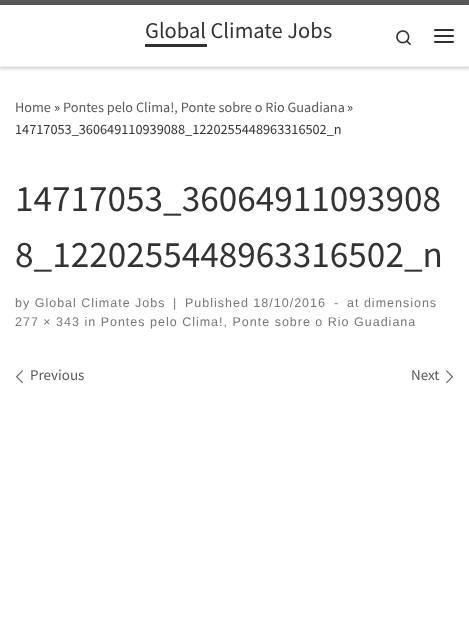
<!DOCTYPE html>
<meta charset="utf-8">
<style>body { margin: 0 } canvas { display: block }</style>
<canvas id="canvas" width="469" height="617"></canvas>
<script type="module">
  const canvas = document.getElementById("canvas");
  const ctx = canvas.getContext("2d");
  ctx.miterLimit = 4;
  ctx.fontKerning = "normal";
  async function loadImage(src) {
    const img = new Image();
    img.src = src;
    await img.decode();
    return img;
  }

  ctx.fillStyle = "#ffffff";
  ctx.fillRect(0, 0, 469, 617);
  ctx.save();
  ctx.beginPath();
  ctx.rect(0, 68, 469, 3);
  ctx.clip();
  ctx.fillStyle = "rgba(102, 102, 102, 0.08)";
  ctx.filter = "blur(1px)";
  ctx.beginPath();
  ctx.rect(0, 2, 469, 68);
  ctx.fill();
  ctx.filter = "none";
  ctx.restore();
  ctx.fillStyle = "#5a5a5a";
  ctx.fillRect(0, 0, 469, 5);
  ctx.fillStyle = "#efefef";
  ctx.fillRect(0, 67, 469, 1);
  ctx.save();
  ctx.beginPath();
  ctx.moveTo(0, 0);
  ctx.lineTo(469, 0);
  ctx.lineTo(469, 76);
  ctx.lineTo(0, 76);
  ctx.closePath();
  ctx.moveTo(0, 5);
  ctx.lineTo(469, 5);
  ctx.lineTo(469, 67);
  ctx.lineTo(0, 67);
  ctx.closePath();
  ctx.clip("evenodd");
  ctx.fillStyle = "rgba(0, 0, 0, 0.2)";
  ctx.filter = "blur(2.5px)";
  ctx.beginPath();
  ctx.rect(0, 5, 469, 62);
  ctx.fill();
  ctx.filter = "none";
  ctx.restore();
  ctx.font = "22.5px Source Sans Pro";
  ctx.fillStyle = "#333333";
  ctx.fillText("Global Climate Jobs", 145, 38);
  ctx.fillStyle = "#313131";
  ctx.fillRect(145, 44, 62, 3);
  ctx.drawImage(await loadImage("img1.png"), 396, 30, 15, 16);
  ctx.beginPath();
  ctx.roundRect(434, 29, 20, 2, 1);
  ctx.fill();
  ctx.beginPath();
  ctx.roundRect(434, 35, 20, 2, 1);
  ctx.fill();
  ctx.beginPath();
  ctx.roundRect(434, 41, 20, 2, 1);
  ctx.fill();
  ctx.fillStyle = "#f0f0f0";
  ctx.fillRect(0, 66, 469, 1);
  ctx.font = "14.25px Source Sans Pro";
  ctx.fillStyle = "#5a5a5a";
  ctx.fillText("Home", 15, 112);
  ctx.fillStyle = "#333333";
  ctx.fillText("»", 54, 112);
  ctx.fillStyle = "#5a5a5a";
  ctx.fillText("Pontes pelo Clima!, Ponte sobre o Rio Guadiana", 63, 112);
  ctx.fillStyle = "#333333";
  ctx.fillText("»", 347, 112);
  ctx.fillText("14717053_360649110939088_1220255448963316502_n", 15, 134);
  ctx.font = "37.25px Source Sans Pro";
  ctx.fillText("14717053_36064911093908", 15, 211);
  ctx.fillText("8_1220255448963316502_n", 15, 267);
  ctx.letterSpacing = "1px";
  ctx.font = "12.5px Liberation Sans";
  ctx.fillStyle = "#777777";
  ctx.fillText("by Global Climate Jobs", 15, 307);
  ctx.fillText("|", 173, 307);
  ctx.fillText("Published 18/10/2016", 185, 307);
  ctx.fillText("-", 334, 307);
  ctx.fillText("at dimensions", 347, 307);
  ctx.fillText("277 × 343 in Pontes pelo Clima!, Ponte sobre o Rio Guadiana", 15, 326);
  ctx.drawImage(await loadImage("img2.png"), 16, 370, 7, 14);
  ctx.letterSpacing = "0px";
  ctx.font = "15px Source Sans Pro";
  ctx.fillStyle = "#5a5a5a";
  ctx.fillText("Previous", 30, 380);
  ctx.fillText("Next", 411, 380);
  ctx.drawImage(await loadImage("img3.png"), 446, 370, 7, 14);
</script>
